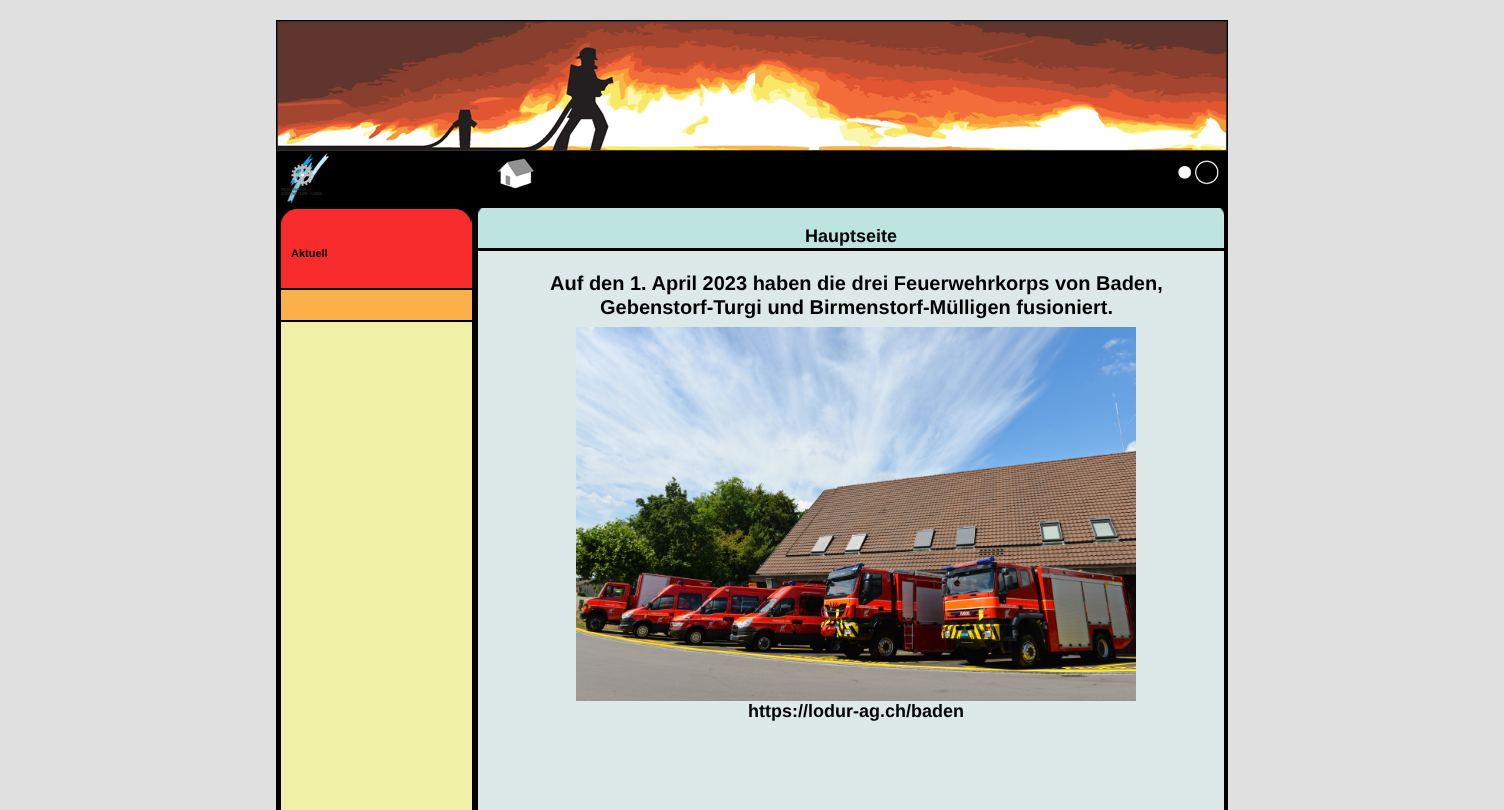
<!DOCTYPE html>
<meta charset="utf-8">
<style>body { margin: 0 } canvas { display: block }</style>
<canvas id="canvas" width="1504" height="810"></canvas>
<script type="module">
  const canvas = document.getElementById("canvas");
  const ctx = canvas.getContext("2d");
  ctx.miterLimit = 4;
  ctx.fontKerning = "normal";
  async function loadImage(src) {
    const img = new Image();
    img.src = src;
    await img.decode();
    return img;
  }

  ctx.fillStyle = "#e0e0e0";
  ctx.fillRect(0, 0, 1504, 810);
  ctx.strokeStyle = "#000000";
  ctx.strokeRect(276.5, 20.5, 951, 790);
  ctx.fillStyle = "#000000";
  ctx.fillRect(277, 151, 950, 2);
  ctx.drawImage(await loadImage("img1.png"), 277, 21, 950, 130);
  ctx.fillRect(277, 153, 950, 55);
  ctx.drawImage(await loadImage("img2.png"), 281, 153, 48, 50);
  ctx.drawImage(await loadImage("img3.png"), 497, 158, 37, 31);
  ctx.drawImage(await loadImage("img4.png"), 1178, 160, 41, 25);
  ctx.fillStyle = "#f0f0a6";
  ctx.fillRect(281, 322, 191, 488);
  ctx.fillStyle = "#000000";
  ctx.fillRect(277, 208, 4, 602);
  ctx.fillRect(281, 288, 191, 2);
  ctx.drawImage(await loadImage("img5.png"), 281, 208, 191, 17);
  ctx.fillStyle = "#f72a2c";
  ctx.fillRect(281, 225, 191, 63);
  ctx.font = "bold 11px Liberation Sans";
  ctx.fillStyle = "#000000";
  ctx.fillText("Aktuell", 291, 257);
  ctx.fillRect(281, 320, 191, 2);
  ctx.fillStyle = "#fcb049";
  ctx.fillRect(281, 290, 191, 30);
  ctx.fillStyle = "#010101";
  ctx.fillRect(472, 208, 6, 602);
  ctx.drawImage(await loadImage("img6.png"), 478, 208, 746, 40);
  ctx.fillStyle = "#000000";
  ctx.fillRect(1224, 208, 3, 602);
  ctx.fillRect(478, 248, 750, 3);
  ctx.font = "bold 18px Liberation Sans";
  ctx.fillText("Hauptseite", 805, 242);
  ctx.fillStyle = "#dde9e8";
  ctx.fillRect(478, 251, 746, 559);
  ctx.font = "bold 20px Liberation Sans";
  ctx.fillStyle = "#000000";
  ctx.fillText("Auf den 1. April 2023 haben die drei Feuerwehrkorps von Baden,", 550, 290);
  ctx.fillText("Gebenstorf-Turgi und Birmenstorf-Mülligen fusioniert.", 600, 314);
  ctx.drawImage(await loadImage("img7.png"), 576, 327, 560, 374);
  ctx.font = "bold 18px Liberation Sans";
  ctx.fillText("https://lodur-ag.ch/baden", 748, 717);
</script>
